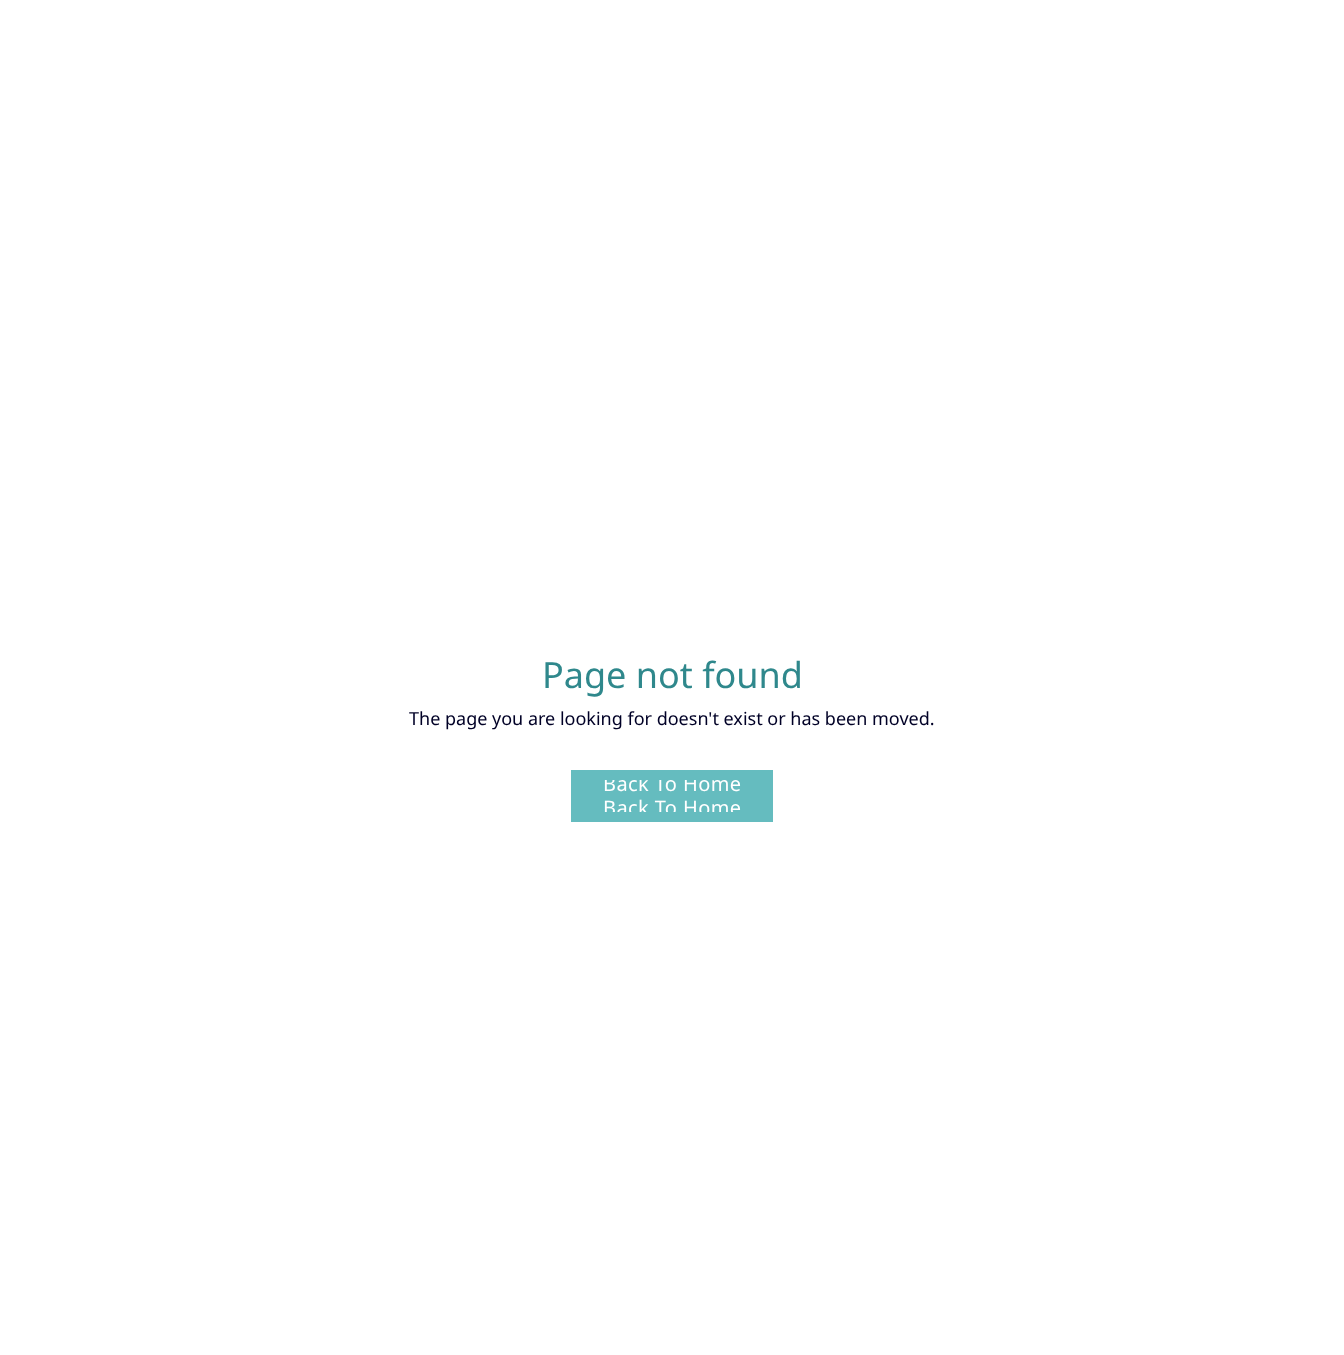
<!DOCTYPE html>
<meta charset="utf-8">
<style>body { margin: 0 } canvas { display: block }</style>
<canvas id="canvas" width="1344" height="1355"></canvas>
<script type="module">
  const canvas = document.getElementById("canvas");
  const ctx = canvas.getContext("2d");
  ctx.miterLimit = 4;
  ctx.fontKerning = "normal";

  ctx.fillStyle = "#ffffff";
  ctx.fillRect(0, 0, 1344, 1355);
  ctx.font = "36px Noto Sans";
  ctx.fillStyle = "#2f888c";
  ctx.fillText("Page not found", 542, 688);
  ctx.font = "18px Noto Sans";
  ctx.fillStyle = "#000026";
  ctx.fillText("The page you are looking for doesn't exist or has been moved.", 409, 725);
  ctx.fillStyle = "#65bcbf";
  ctx.fillRect(571, 770, 202, 52);
  ctx.save();
  ctx.beginPath();
  ctx.rect(603, 780, 138, 32);
  ctx.clip();
  ctx.letterSpacing = "0.4px";
  ctx.font = "20px Noto Sans";
  ctx.fillStyle = "#ffffff";
  ctx.fillText("Back To Home", 603, 791);
  ctx.fillText("Back To Home", 603, 815);
  ctx.restore();
</script>
